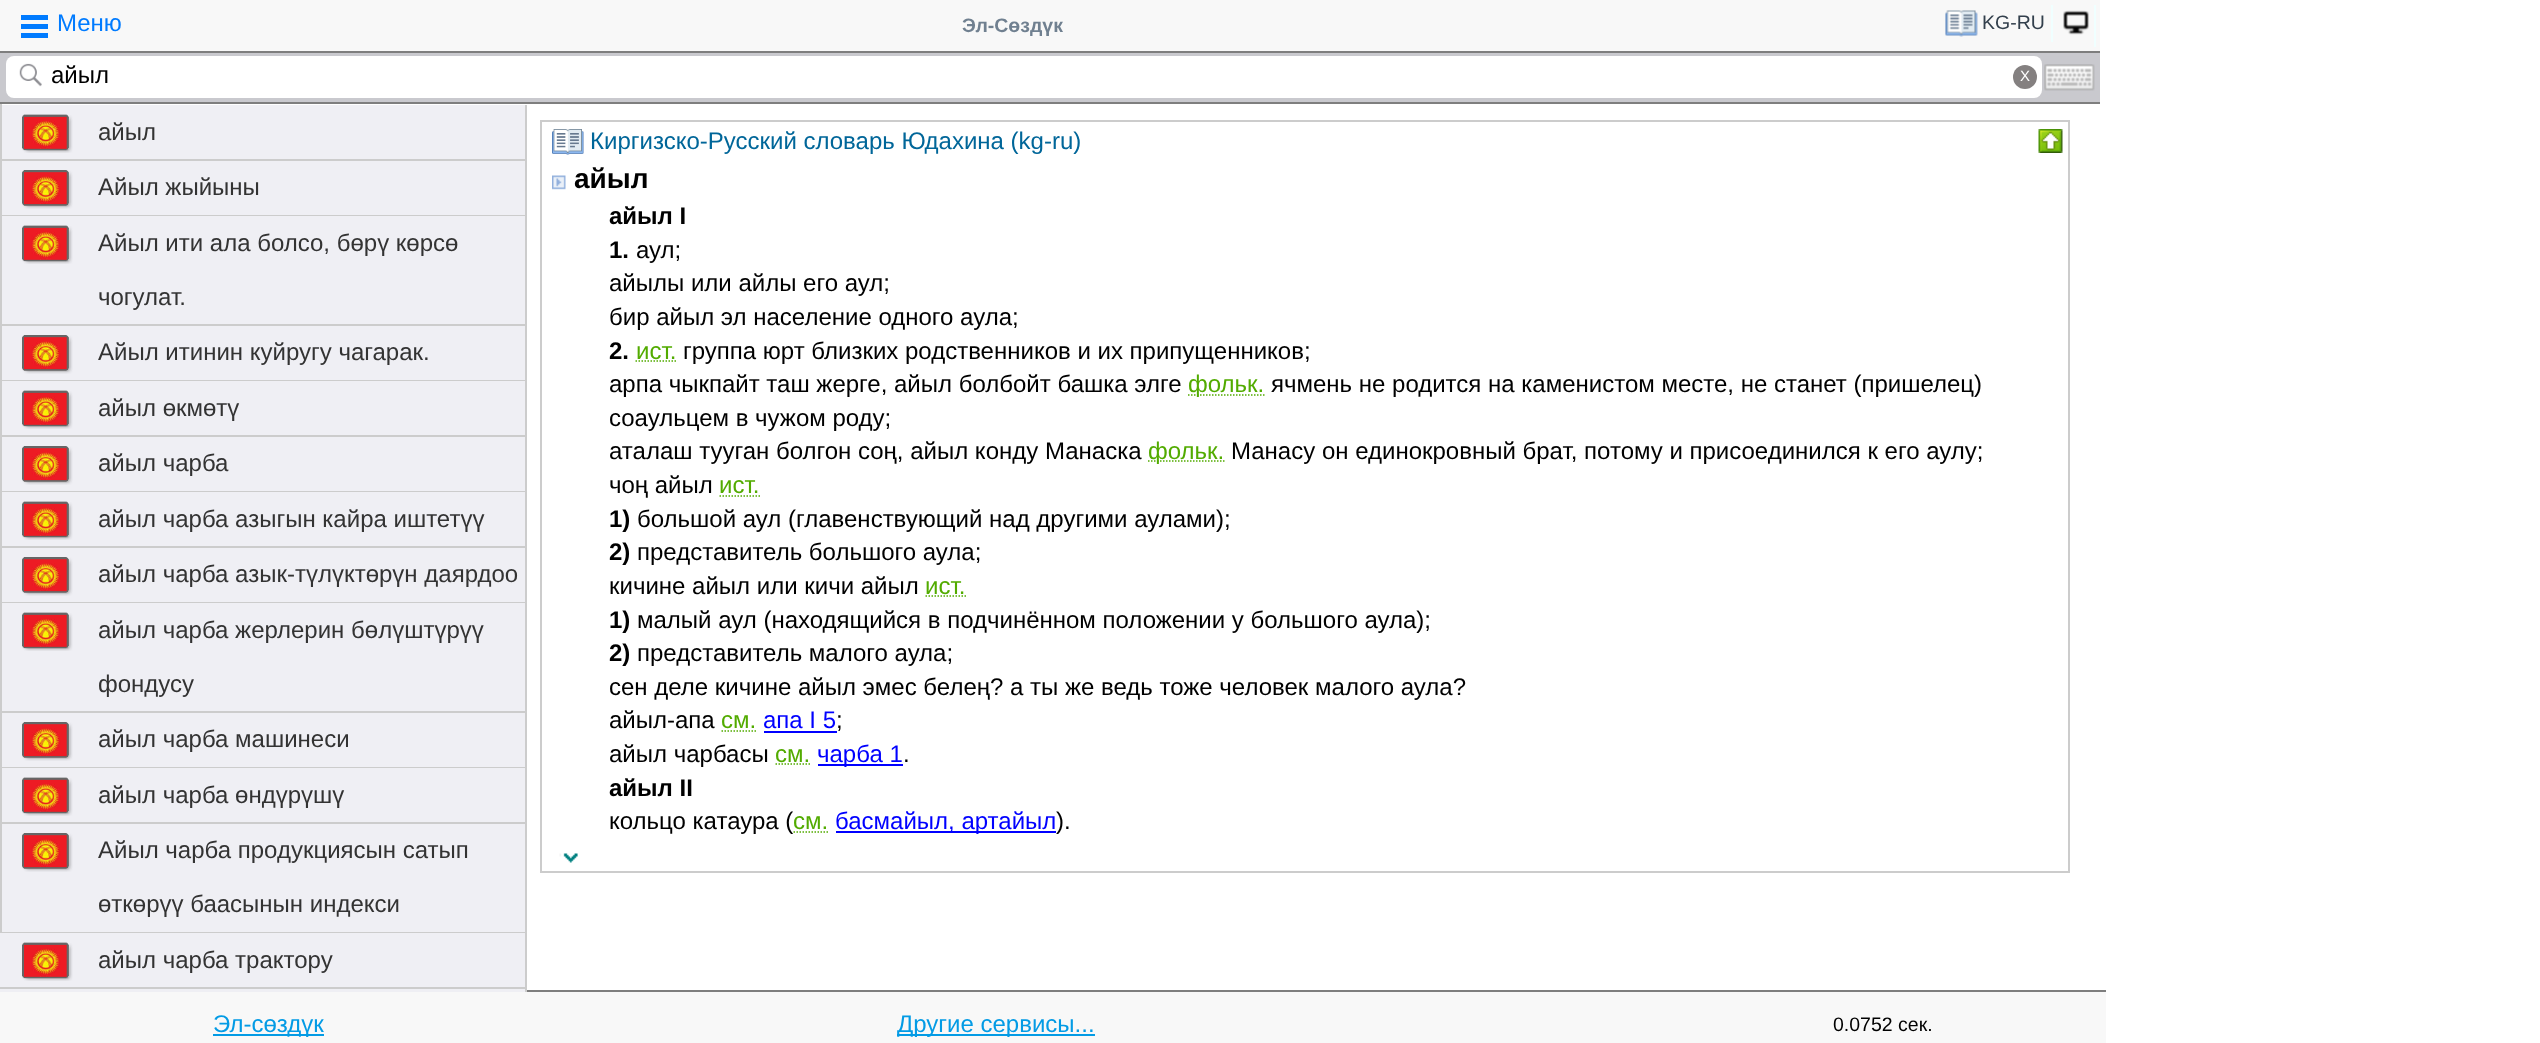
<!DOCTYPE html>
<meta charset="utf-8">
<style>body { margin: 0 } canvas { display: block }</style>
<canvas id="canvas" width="2540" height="1043"></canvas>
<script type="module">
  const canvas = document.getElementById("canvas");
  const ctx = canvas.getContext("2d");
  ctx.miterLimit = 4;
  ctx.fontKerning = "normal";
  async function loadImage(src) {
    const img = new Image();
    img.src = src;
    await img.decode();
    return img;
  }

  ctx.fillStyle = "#ffffff";
  ctx.fillRect(0, 0, 2540, 1043);
  ctx.fillStyle = "#f8f8f8";
  ctx.fillRect(0, 0, 2100, 51);
  ctx.fillStyle = "#7e7e7e";
  ctx.fillRect(0, 51, 2100, 2);
  ctx.fillStyle = "#007bff";
  ctx.fillRect(21, 15, 27, 5);
  ctx.fillRect(21, 24, 27, 5);
  ctx.fillRect(21, 33, 27, 5);
  ctx.font = "24px Liberation Sans";
  ctx.fillText("Меню", 57, 31);
  ctx.font = "bold 19.5px Liberation Sans";
  ctx.fillStyle = "#708090";
  ctx.fillText("Эл-Сөздүк", 962, 32);
  ctx.fillStyle = "#f0ffff";
  ctx.fillRect(2051, 5, 2, 37);
  ctx.drawImage(await loadImage("img1.png"), 1945, 10, 33, 27);
  ctx.font = "19.5px Liberation Sans";
  ctx.fillStyle = "#33404d";
  ctx.fillText("KG-RU", 1982, 29);
  ctx.fillStyle = "#f0ffff";
  ctx.fillRect(2094, 5, 2, 42);
  ctx.drawImage(await loadImage("img2.png"), 2063, 10, 26, 25);
  ctx.fillStyle = "#c9c9ce";
  ctx.fillRect(0, 53, 2100, 49);
  ctx.fillStyle = "#7e7e7e";
  ctx.fillRect(0, 102, 2100, 2);
  ctx.fillStyle = "#ffffff";
  ctx.beginPath();
  ctx.roundRect(6, 56, 2036, 42, 8);
  ctx.fill();
  ctx.drawImage(await loadImage("img3.png"), 19, 63, 23, 24);
  ctx.font = "24px Liberation Sans";
  ctx.fillStyle = "#000000";
  ctx.fillText("айыл", 51, 83);
  ctx.fillStyle = "#848080";
  ctx.beginPath();
  ctx.arc(2025, 77, 12, 0, Math.PI * 2);
  ctx.fill();
  ctx.font = "15px Liberation Sans";
  ctx.fillStyle = "#ffffff";
  ctx.fillText("X", 2020, 81);
  ctx.drawImage(await loadImage("img4.png"), 2044, 64, 51, 27);
  ctx.fillStyle = "#efeff4";
  ctx.fillRect(0, 105, 525, 887);
  ctx.fillStyle = "#cccccc";
  ctx.fillRect(0, 159, 525, 2);
  ctx.fillRect(0, 215, 525, 1);
  ctx.fillRect(0, 324, 525, 2);
  ctx.fillRect(0, 380, 525, 1);
  ctx.fillRect(0, 435, 525, 2);
  ctx.fillRect(0, 491, 525, 1);
  ctx.fillRect(0, 546, 525, 2);
  ctx.fillRect(0, 602, 525, 1);
  ctx.fillRect(0, 711, 525, 2);
  ctx.fillRect(0, 767, 525, 1);
  ctx.fillRect(0, 822, 525, 2);
  ctx.fillRect(0, 104, 2, 828);
  ctx.fillRect(525, 105, 2, 887);
  ctx.drawImage(await loadImage("img5.png"), 22, 114, 51, 39);
  ctx.font = "24px Liberation Sans";
  ctx.fillStyle = "#333333";
  ctx.fillText("айыл", 98, 140);
  ctx.drawImage(await loadImage("img6.png"), 22, 170, 51, 39);
  ctx.fillText("Айыл жыйыны", 98, 195);
  ctx.drawImage(await loadImage("img5.png"), 22, 225, 51, 39);
  ctx.fillText("Айыл ити ала болсо, бөрү көрсө", 98, 251);
  ctx.fillText("чогулат.", 98, 305);
  ctx.drawImage(await loadImage("img6.png"), 22, 335, 51, 39);
  ctx.fillText("Айыл итинин куйругу чагарак.", 98, 360);
  ctx.drawImage(await loadImage("img5.png"), 22, 390, 51, 39);
  ctx.fillText("айыл өкмөтү", 98, 416);
  ctx.drawImage(await loadImage("img6.png"), 22, 446, 51, 39);
  ctx.fillText("айыл чарба", 98, 471);
  ctx.drawImage(await loadImage("img5.png"), 22, 501, 51, 39);
  ctx.fillText("айыл чарба азыгын кайра иштетүү", 98, 527);
  ctx.drawImage(await loadImage("img6.png"), 22, 557, 51, 39);
  ctx.fillText("айыл чарба азык-түлүктөрүн даярдоо", 98, 582);
  ctx.drawImage(await loadImage("img5.png"), 22, 612, 51, 39);
  ctx.fillText("айыл чарба жерлерин бөлүштүрүү", 98, 638);
  ctx.fillText("фондусу", 98, 692);
  ctx.drawImage(await loadImage("img6.png"), 22, 722, 51, 39);
  ctx.fillText("айыл чарба машинеси", 98, 747);
  ctx.drawImage(await loadImage("img5.png"), 22, 777, 51, 39);
  ctx.fillText("айыл чарба өндүрүшү", 98, 803);
  ctx.fillStyle = "#cccccc";
  ctx.fillRect(0, 932, 525, 1);
  ctx.drawImage(await loadImage("img6.png"), 22, 833, 51, 39);
  ctx.fillStyle = "#333333";
  ctx.fillText("Айыл чарба продукциясын сатып", 98, 858);
  ctx.fillText("өткөрүү баасынын индекси", 98, 912);
  ctx.fillStyle = "#cccccc";
  ctx.fillRect(0, 987, 525, 2);
  ctx.drawImage(await loadImage("img5.png"), 22, 942, 51, 39);
  ctx.fillStyle = "#333333";
  ctx.fillText("айыл чарба трактору", 98, 968);
  ctx.strokeStyle = "#cccccc";
  ctx.lineWidth = 2;
  ctx.strokeRect(541, 121, 1528, 751);
  ctx.drawImage(await loadImage("img7.png"), 552, 129, 32, 26);
  ctx.fillStyle = "#006699";
  ctx.fillText("Киргизско-Русский словарь Юдахина (kg-ru)", 590, 149);
  ctx.drawImage(await loadImage("img8.png"), 2038, 129, 25, 24);
  ctx.drawImage(await loadImage("img9.png"), 552, 175, 14, 15);
  ctx.font = "bold 28px Liberation Sans";
  ctx.fillStyle = "#000000";
  ctx.fillText("айыл", 574, 188);
  ctx.font = "bold 24px Liberation Sans";
  ctx.fillText("айыл I", 609, 224);
  ctx.fillText("1.", 609, 258);
  ctx.font = "24px Liberation Sans";
  ctx.fillText("аул;", 636, 258);
  ctx.fillText("айылы или айлы его аул;", 609, 291);
  ctx.fillText("бир айыл эл население одного аула;", 609, 325);
  ctx.font = "bold 24px Liberation Sans";
  ctx.fillText("2.", 609, 359);
  ctx.font = "24px Liberation Sans";
  ctx.fillStyle = "#52ab00";
  ctx.fillText("ист.", 636, 359);
  ctx.beginPath();
  ctx.moveTo(635.5, 361);
  ctx.lineTo(676, 361);
  ctx.strokeStyle = "#52ab00";
  ctx.lineWidth = 1.5;
  ctx.setLineDash([1.5, 1.5]);
  ctx.stroke();
  ctx.fillStyle = "#000000";
  ctx.fillText("группа юрт близких родственников и их припущенников;", 683, 359);
  ctx.fillText("арпа чыкпайт таш жерге, айыл болбойт башка элге", 609, 392);
  ctx.beginPath();
  ctx.moveTo(1188, 395);
  ctx.lineTo(1264.5, 395);
  ctx.stroke();
  ctx.fillStyle = "#52ab00";
  ctx.fillText("фольк.", 1188, 392);
  ctx.fillStyle = "#000000";
  ctx.fillText("ячмень не родится на каменистом месте, не станет (пришелец)", 1271, 392);
  ctx.fillText("соаульцем в чужом роду;", 609, 426);
  ctx.fillText("аталаш тууган болгон соң, айыл конду Манаска", 609, 459);
  ctx.beginPath();
  ctx.moveTo(1148, 461);
  ctx.lineTo(1224.5, 461);
  ctx.stroke();
  ctx.fillStyle = "#52ab00";
  ctx.fillText("фольк.", 1148, 459);
  ctx.fillStyle = "#000000";
  ctx.fillText("Манасу он единокровный брат, потому и присоединился к его аулу;", 1231, 459);
  ctx.fillText("чоң айыл", 609, 493);
  ctx.fillStyle = "#52ab00";
  ctx.fillText("ист.", 719, 493);
  ctx.beginPath();
  ctx.moveTo(719.5, 496);
  ctx.lineTo(760, 496);
  ctx.stroke();
  ctx.font = "bold 24px Liberation Sans";
  ctx.fillStyle = "#000000";
  ctx.fillText("1)", 609, 527);
  ctx.font = "24px Liberation Sans";
  ctx.fillText("большой аул (главенствующий над другими аулами);", 637, 527);
  ctx.font = "bold 24px Liberation Sans";
  ctx.fillText("2)", 609, 560);
  ctx.font = "24px Liberation Sans";
  ctx.fillText("представитель большого аула;", 637, 560);
  ctx.fillText("кичине айыл или кичи айыл", 609, 594);
  ctx.fillStyle = "#52ab00";
  ctx.fillText("ист.", 925, 594);
  ctx.beginPath();
  ctx.moveTo(925.5, 596);
  ctx.lineTo(966, 596);
  ctx.stroke();
  ctx.font = "bold 24px Liberation Sans";
  ctx.fillStyle = "#000000";
  ctx.fillText("1)", 609, 628);
  ctx.font = "24px Liberation Sans";
  ctx.fillText("малый аул (находящийся в подчинённом положении у большого аула);", 637, 628);
  ctx.font = "bold 24px Liberation Sans";
  ctx.fillText("2)", 609, 661);
  ctx.font = "24px Liberation Sans";
  ctx.fillText("представитель малого аула;", 637, 661);
  ctx.fillText("сен деле кичине айыл эмес белең? а ты же ведь тоже человек малого аула?", 609, 695);
  ctx.fillText("айыл-апа", 609, 728);
  ctx.fillStyle = "#52ab00";
  ctx.fillText("см.", 721, 728);
  ctx.beginPath();
  ctx.moveTo(721.5, 731);
  ctx.lineTo(756.5, 731);
  ctx.stroke();
  ctx.fillStyle = "#0000ff";
  ctx.fillText("апа I 5", 763, 728);
  ctx.fillStyle = "#000000";
  ctx.fillText(";", 836, 728);
  ctx.fillStyle = "#0000ff";
  ctx.fillRect(764, 731, 73, 2);
  ctx.fillStyle = "#000000";
  ctx.fillText("айыл чарбасы", 609, 762);
  ctx.fillStyle = "#52ab00";
  ctx.fillText("см.", 775, 762);
  ctx.beginPath();
  ctx.moveTo(775.5, 764);
  ctx.lineTo(810.5, 764);
  ctx.stroke();
  ctx.fillStyle = "#0000ff";
  ctx.fillRect(818, 764, 85, 2);
  ctx.fillText("чарба 1", 817, 762);
  ctx.fillStyle = "#000000";
  ctx.fillText(".", 903, 762);
  ctx.font = "bold 24px Liberation Sans";
  ctx.fillText("айыл II", 609, 796);
  ctx.font = "24px Liberation Sans";
  ctx.fillText("кольцо катаура (", 609, 829);
  ctx.fillStyle = "#52ab00";
  ctx.fillText("см.", 793, 829);
  ctx.beginPath();
  ctx.moveTo(793.5, 832);
  ctx.lineTo(828.5, 832);
  ctx.stroke();
  ctx.fillStyle = "#0000ff";
  ctx.fillRect(836, 831, 220, 2);
  ctx.fillText("басмайыл, артайыл", 835, 829);
  ctx.fillStyle = "#000000";
  ctx.fillText(").", 1056, 829);
  ctx.drawImage(await loadImage("img10.png"), 559, 853, 19, 10);
  ctx.fillStyle = "#f8f8f8";
  ctx.fillRect(0, 992, 2106, 51);
  ctx.fillStyle = "#7e7e7e";
  ctx.fillRect(527, 990, 1579, 2);
  ctx.fillStyle = "#039be5";
  ctx.fillRect(213, 1034, 111, 2);
  ctx.fillText("Эл-сөздүк", 213, 1032);
  ctx.fillRect(897, 1034, 198, 2);
  ctx.fillText("Другие сервисы...", 897, 1032);
  ctx.font = "19.5px Liberation Sans";
  ctx.fillStyle = "#000000";
  ctx.fillText("0.0752 сек.", 1833, 1031);
</script>
